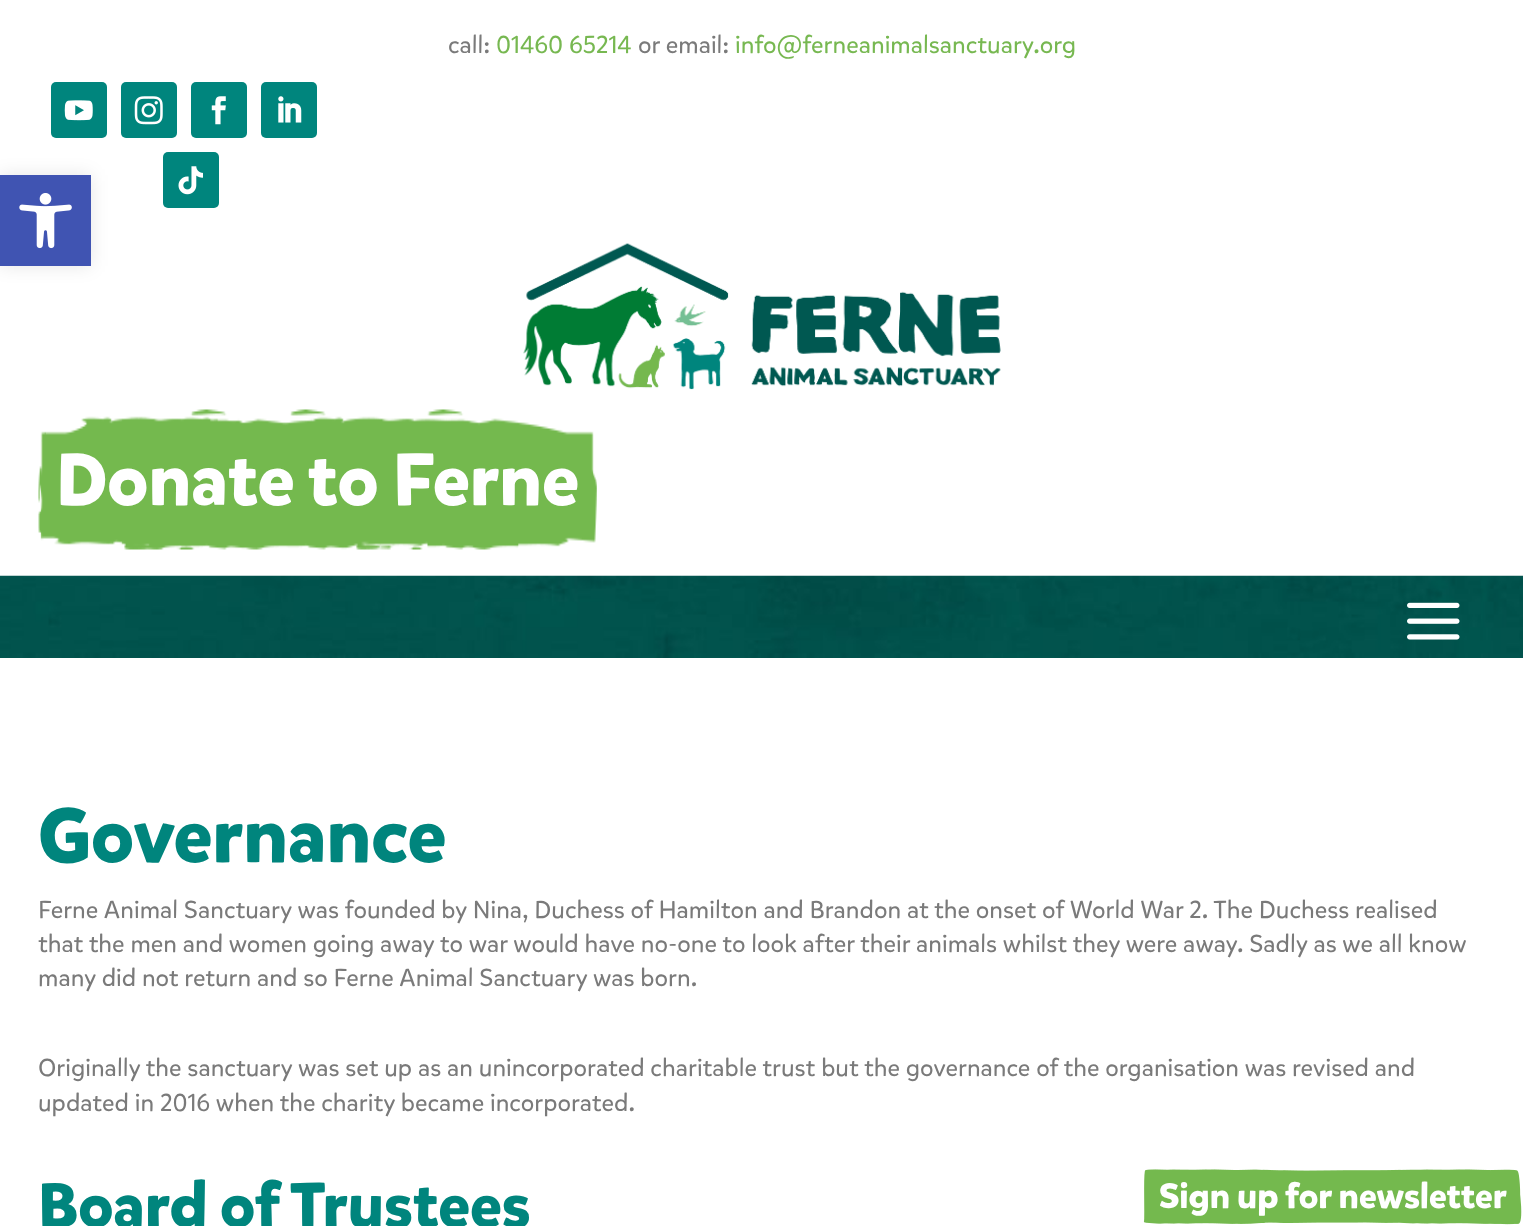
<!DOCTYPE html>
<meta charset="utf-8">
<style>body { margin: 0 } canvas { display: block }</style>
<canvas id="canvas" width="1523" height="1226"></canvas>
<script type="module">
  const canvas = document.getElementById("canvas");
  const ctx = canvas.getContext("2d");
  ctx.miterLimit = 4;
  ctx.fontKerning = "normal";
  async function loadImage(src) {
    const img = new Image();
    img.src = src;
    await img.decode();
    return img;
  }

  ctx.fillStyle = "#ffffff";
  ctx.fillRect(0, 0, 1523, 1226);
  ctx.font = "24.5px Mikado";
  ctx.fillStyle = "#7a7a7a";
  ctx.fillText("call:", 448, 53);
  ctx.fillStyle = "#77b851";
  ctx.fillText("01460 65214", 496, 53);
  ctx.fillStyle = "#7a7a7a";
  ctx.fillText("or email:", 638, 53);
  ctx.fillStyle = "#77b851";
  ctx.fillText("info@ferneanimalsanctuary.org", 735, 53);
  ctx.fillStyle = "#00857d";
  ctx.beginPath();
  ctx.roundRect(51, 82, 56, 56, 5);
  ctx.fill();
  ctx.drawImage(await loadImage("img1.png"), 64, 100, 29, 21);
  ctx.beginPath();
  ctx.roundRect(121, 82, 56, 56, 5);
  ctx.fill();
  ctx.drawImage(await loadImage("img2.png"), 134, 96, 29, 29);
  ctx.beginPath();
  ctx.roundRect(191, 82, 56, 56, 5);
  ctx.fill();
  ctx.drawImage(await loadImage("img3.png"), 211, 96, 15, 29);
  ctx.beginPath();
  ctx.roundRect(261, 82, 56, 56, 5);
  ctx.fill();
  ctx.drawImage(await loadImage("img4.png"), 278, 96, 24, 27);
  ctx.beginPath();
  ctx.roundRect(163, 152, 56, 56, 5);
  ctx.fill();
  ctx.drawImage(await loadImage("img5.png"), 178, 166, 25, 29);
  ctx.drawImage(await loadImage("img6.png"), 523, 243, 478, 147);
  ctx.drawImage(await loadImage("img7.png"), 38, 409, 559, 141);
  ctx.font = "bold 73.5px Mikado";
  ctx.fillStyle = "#ffffff";
  ctx.fillText("Donate to Ferne", 56, 505);
  ctx.drawImage(await loadImage("img8.png"), 0, 575, 1523, 83);
  ctx.drawImage(await loadImage("img9.png"), 1407, 602, 53, 38);
  ctx.font = "bold 77px Mikado";
  ctx.fillStyle = "#00857d";
  ctx.fillText("Governance", 38, 862);
  ctx.font = "24.5px Mikado";
  ctx.fillStyle = "#7a7a7a";
  ctx.fillText("Ferne Animal Sanctuary was founded by Nina, Duchess of Hamilton and Brandon at the onset of World War 2. The Duchess realised", 38, 918);
  ctx.fillText("that the men and women going away to war would have no-one to look after their animals whilst they were away. Sadly as we all know", 38, 952);
  ctx.fillText("many did not return and so Ferne Animal Sanctuary was born.", 38, 986);
  ctx.fillText("Originally the sanctuary was set up as an unincorporated charitable trust but the governance of the organisation was revised and", 38, 1076);
  ctx.fillText("updated in 2016 when the charity became incorporated.", 38, 1111);
  ctx.font = "bold 63px Mikado";
  ctx.fillStyle = "#00857d";
  ctx.fillText("Board of Trustees", 38, 1227);
  ctx.drawImage(await loadImage("img10.png"), 1143, 1169, 379, 56);
  ctx.font = "bold 35px Mikado";
  ctx.fillStyle = "#ffffff";
  ctx.fillText("Sign up for newsletter", 1159, 1208);
  ctx.fillStyle = "rgba(0, 0, 0, 0.1)";
  ctx.filter = "blur(9px)";
  ctx.beginPath();
  ctx.rect(0, 175, 91, 91);
  ctx.fill();
  ctx.filter = "none";
  ctx.fillStyle = "#4054b2";
  ctx.fillRect(0, 175, 91, 91);
  ctx.drawImage(await loadImage("img11.png"), 19, 193, 53, 56);
</script>
